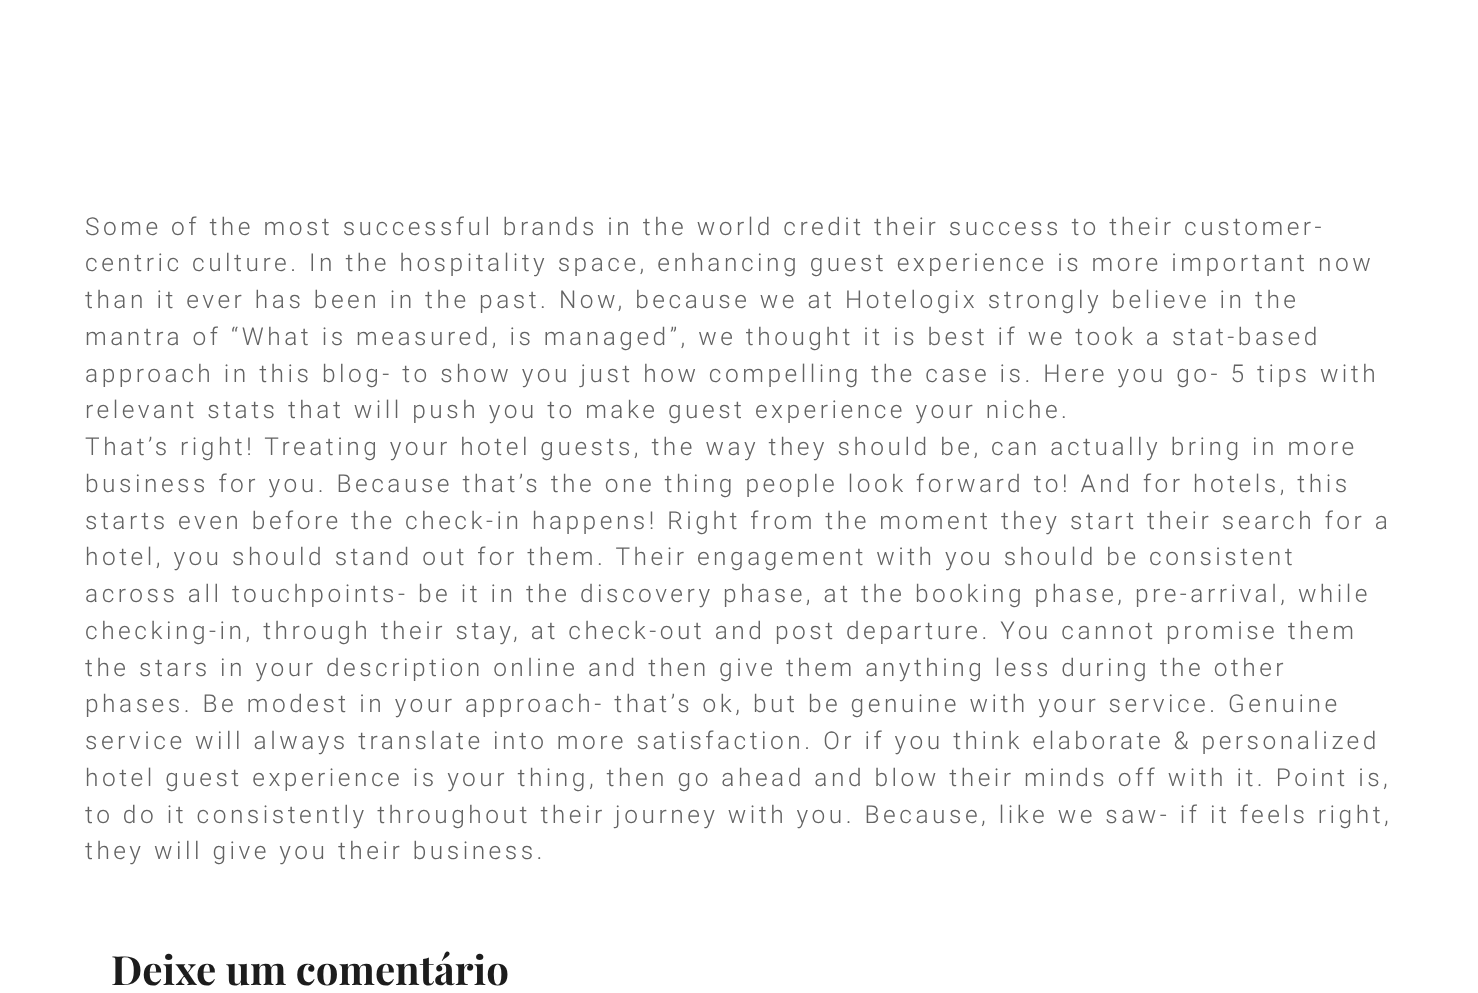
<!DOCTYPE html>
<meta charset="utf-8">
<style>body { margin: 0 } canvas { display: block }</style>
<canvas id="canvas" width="1478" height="993"></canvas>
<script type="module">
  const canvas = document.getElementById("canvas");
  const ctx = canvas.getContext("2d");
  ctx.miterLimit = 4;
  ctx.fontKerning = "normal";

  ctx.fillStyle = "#ffffff";
  ctx.fillRect(0, 0, 1478, 993);
  ctx.letterSpacing = "3.5px";
  ctx.font = "300 24.5px Roboto";
  ctx.fillStyle = "#636363";
  ctx.fillText("Some of the most successful brands in the world credit their success to their customer-", 85, 235);
  ctx.fillText("centric culture. In the hospitality space, enhancing guest experience is more important now", 85, 271);
  ctx.fillText("than it ever has been in the past. Now, because we at Hotelogix strongly believe in the", 85, 308);
  ctx.fillText("mantra of “What is measured, is managed”, we thought it is best if we took a stat-based", 85, 345);
  ctx.fillText("approach in this blog- to show you just how compelling the case is. Here you go- 5 tips with", 85, 382);
  ctx.fillText("relevant stats that will push you to make guest experience your niche.", 85, 418);
  ctx.fillText("That’s right! Treating your hotel guests, the way they should be, can actually bring in more", 85, 455);
  ctx.fillText("business for you. Because that’s the one thing people look forward to! And for hotels, this", 85, 492);
  ctx.fillText("starts even before the check-in happens! Right from the moment they start their search for a", 85, 529);
  ctx.fillText("hotel, you should stand out for them. Their engagement with you should be consistent", 85, 565);
  ctx.fillText("across all touchpoints- be it in the discovery phase, at the booking phase, pre-arrival, while", 85, 602);
  ctx.fillText("checking-in, through their stay, at check-out and post departure. You cannot promise them", 85, 639);
  ctx.fillText("the stars in your description online and then give them anything less during the other", 85, 676);
  ctx.fillText("phases. Be modest in your approach- that’s ok, but be genuine with your service. Genuine", 85, 712);
  ctx.fillText("service will always translate into more satisfaction. Or if you think elaborate & personalized", 85, 749);
  ctx.fillText("hotel guest experience is your thing, then go ahead and blow their minds off with it. Point is,", 85, 786);
  ctx.fillText("to do it consistently throughout their journey with you. Because, like we saw- if it feels right,", 85, 823);
  ctx.fillText("they will give you their business.", 85, 859);
  ctx.letterSpacing = "0px";
  ctx.font = "bold 40.25px Playfair Display";
  ctx.fillStyle = "#1c1c1c";
  ctx.fillText("Deixe um comentário", 111, 985);
</script>
